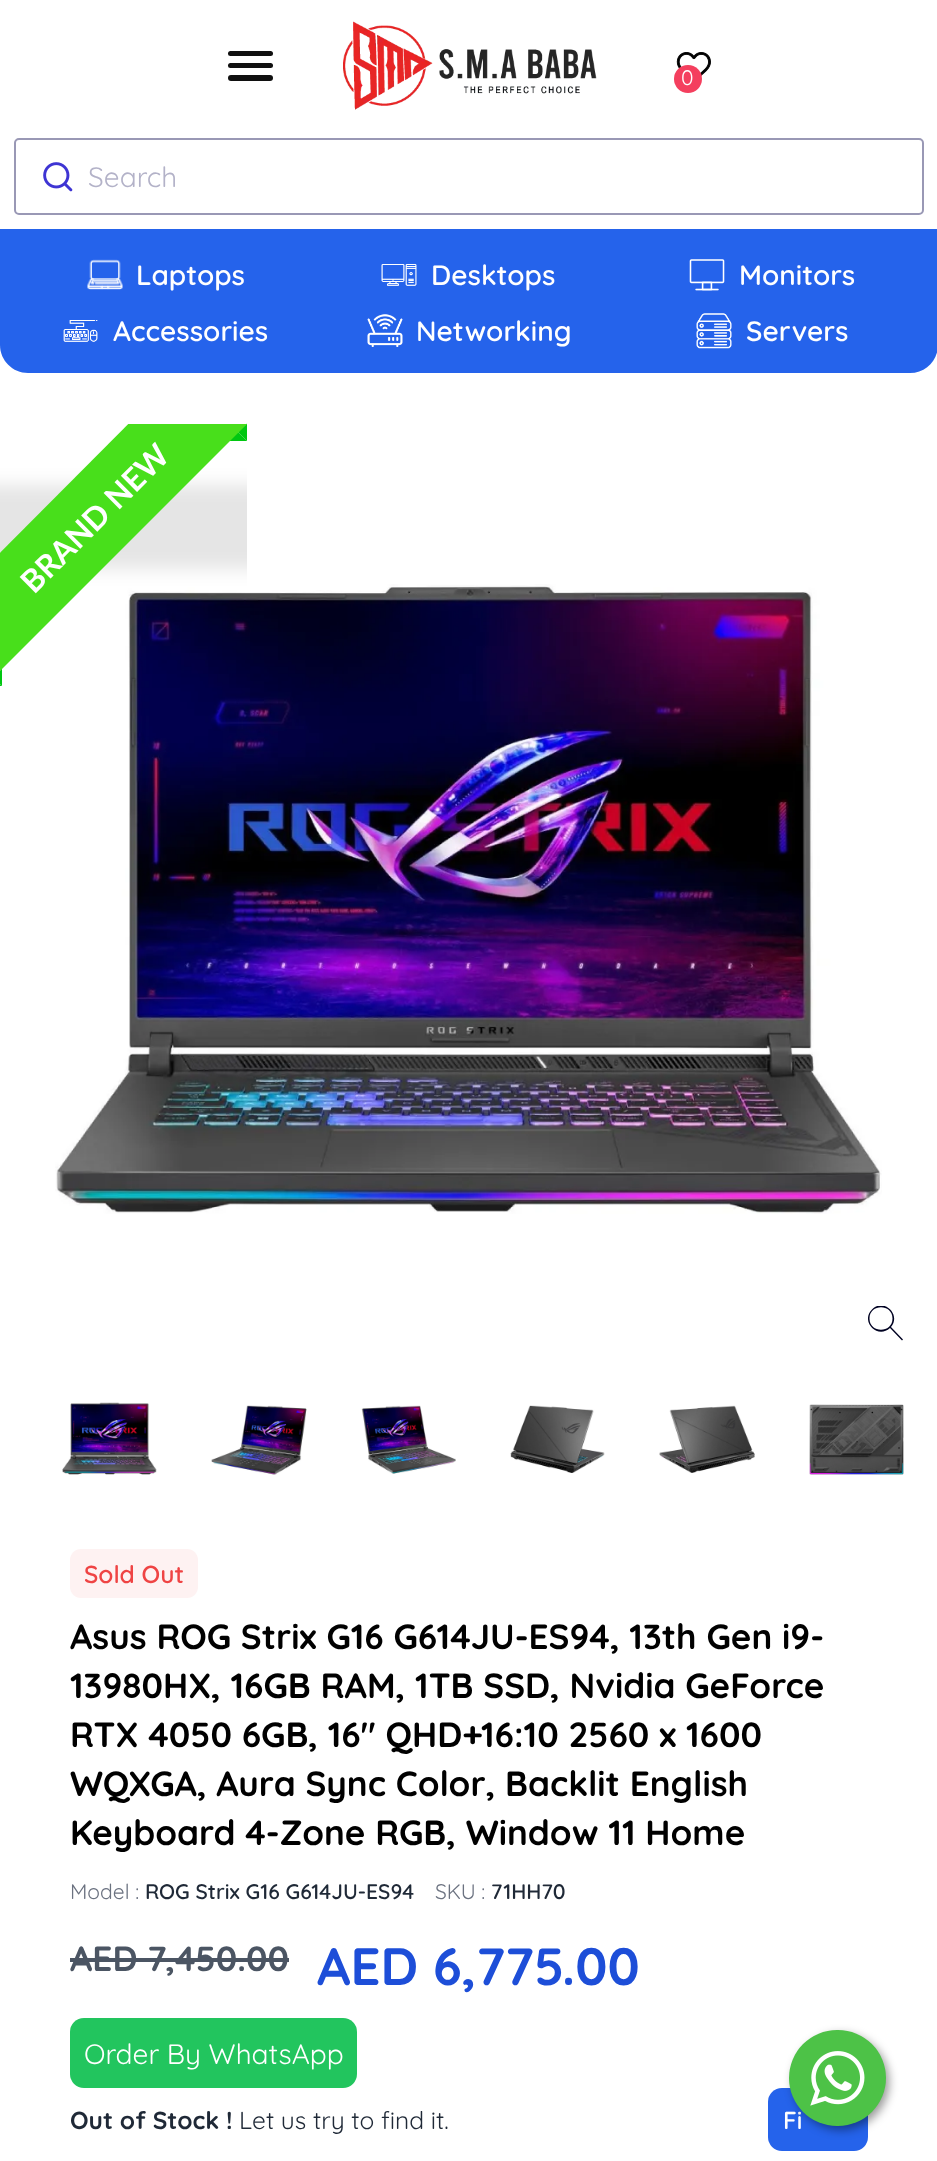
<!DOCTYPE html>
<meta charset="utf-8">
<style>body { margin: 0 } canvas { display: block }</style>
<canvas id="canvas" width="937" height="2161"></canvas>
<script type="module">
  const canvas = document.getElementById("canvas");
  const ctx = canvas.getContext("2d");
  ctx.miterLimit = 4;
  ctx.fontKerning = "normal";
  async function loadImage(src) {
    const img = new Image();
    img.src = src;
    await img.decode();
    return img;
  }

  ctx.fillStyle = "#ffffff";
  ctx.fillRect(0, 0, 937, 2161);
  ctx.fillStyle = "#2563eb";
  ctx.fillRect(0, 229, 937, 4);
  ctx.fillStyle = "#101010";
  ctx.beginPath();
  ctx.roundRect(228, 51, 45, 5, 2.5);
  ctx.fill();
  ctx.beginPath();
  ctx.roundRect(228, 63, 45, 5, 2.5);
  ctx.fill();
  ctx.beginPath();
  ctx.roundRect(228, 75, 45, 6, 3);
  ctx.fill();
  ctx.drawImage(await loadImage("img1.png"), 343, 21, 254, 89);
  ctx.drawImage(await loadImage("img2.png"), 676, 52, 35, 24);
  ctx.fillStyle = "#f43f5e";
  ctx.beginPath();
  ctx.arc(688, 79, 14, 0, Math.PI * 2);
  ctx.fill();
  ctx.font = "21px Quicksand";
  ctx.fillStyle = "#ffffff";
  ctx.fillText("0", 681, 85);
  ctx.beginPath();
  ctx.roundRect(15, 139, 908, 75, 4);
  ctx.strokeStyle = "#9998b5";
  ctx.lineWidth = 2;
  ctx.stroke();
  ctx.drawImage(await loadImage("img3.png"), 43, 162, 30, 30);
  ctx.font = "28px Quicksand";
  ctx.fillStyle = "#b3b2c8";
  ctx.fillText("Search", 88, 187);
  ctx.fillStyle = "#2563eb";
  ctx.beginPath();
  ctx.moveTo(0, 233);
  ctx.lineTo(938, 233);
  ctx.lineTo(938, 345);
  ctx.bezierCurveTo(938, 360.5, 925.5, 373, 910, 373);
  ctx.lineTo(28, 373);
  ctx.bezierCurveTo(12.5, 373, 0, 360.5, 0, 345);
  ctx.closePath();
  ctx.fill();
  ctx.drawImage(await loadImage("img4.png"), 87, 259, 36, 31);
  ctx.font = "600 28px Quicksand";
  ctx.fillStyle = "#ffffff";
  ctx.fillText("Laptops", 136, 285);
  ctx.drawImage(await loadImage("img5.png"), 381, 264, 36, 22);
  ctx.fillText("Desktops", 431, 285);
  ctx.drawImage(await loadImage("img6.png"), 689, 259, 36, 32);
  ctx.fillText("Monitors", 739, 285);
  ctx.drawImage(await loadImage("img7.png"), 63, 320, 35, 22);
  ctx.fillText("Accessories", 113, 341);
  ctx.drawImage(await loadImage("img8.png"), 367, 314, 36, 33);
  ctx.fillText("Networking", 416, 341);
  ctx.drawImage(await loadImage("img9.png"), 696, 313, 36, 36);
  ctx.fillText("Servers", 746, 341);
  ctx.fillStyle = "#00c711";
  ctx.beginPath();
  ctx.moveTo(247, 423.5);
  ctx.lineTo(247, 441);
  ctx.lineTo(238, 432);
  ctx.closePath();
  ctx.fill();
  ctx.beginPath();
  ctx.moveTo(247, 441);
  ctx.lineTo(229, 441);
  ctx.lineTo(238, 432);
  ctx.closePath();
  ctx.fill();
  ctx.drawImage(await loadImage("img10.png"), 55, 584, 827, 630);
  ctx.save();
  ctx.beginPath();
  ctx.rect(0, 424, 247, 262);
  ctx.clip();
  ctx.fillStyle = "rgba(0, 0, 0, 0.1)";
  ctx.filter = "blur(9px)";
  ctx.beginPath();
  ctx.rect(-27, 485, 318, 84);
  ctx.fill();
  ctx.filter = "none";
  ctx.restore();
  ctx.beginPath();
  ctx.moveTo(2, 668.5);
  ctx.lineTo(2, 686);
  ctx.lineTo(-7, 677);
  ctx.closePath();
  ctx.fill();
  ctx.save();
  ctx.beginPath();
  ctx.rect(0, 424, 247, 262);
  ctx.clip();
  ctx.fillStyle = "#48df1b";
  ctx.beginPath();
  ctx.moveTo(-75, 628);
  ctx.lineTo(203, 349);
  ctx.lineTo(263, 408);
  ctx.lineTo(-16, 687);
  ctx.closePath();
  ctx.fill();
  ctx.restore();
  ctx.font = "bold 31.5px Lato";
  ctx.fillStyle = "#ffffff";
  ctx.save();
  ctx.translate(34, 595);
  ctx.rotate(-45 * Math.PI / 180);
  ctx.fillText("BRAND NEW", 0, 0);
  ctx.restore();
  ctx.fillStyle = "#00c711";
  ctx.beginPath();
  ctx.moveTo(2, 686);
  ctx.lineTo(-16, 686);
  ctx.lineTo(-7, 677);
  ctx.closePath();
  ctx.fill();
  ctx.save();
  ctx.beginPath();
  ctx.rect(868, 1306, 35, 35);
  ctx.clip();
  ctx.fillStyle = "#000222";
  ctx.beginPath();
  ctx.moveTo(892.5, 1318.5);
  ctx.bezierCurveTo(892.5, 1303.5, 869.5, 1303.5, 869.5, 1318.5);
  ctx.bezierCurveTo(869.5, 1333.5, 892.5, 1333.5, 892.5, 1318.5);
  ctx.closePath();
  ctx.moveTo(902, 1340.5);
  ctx.lineTo(890, 1328);
  ctx.bezierCurveTo(877.5, 1339.5, 860, 1321.5, 872, 1309.5);
  ctx.bezierCurveTo(883.5, 1297.5, 901.5, 1314.5, 891, 1327);
  ctx.lineTo(903, 1339.5);
  ctx.closePath();
  ctx.fill();
  ctx.restore();
  ctx.drawImage(await loadImage("img11.png"), 62, 1402, 95, 73);
  ctx.drawImage(await loadImage("img12.png"), 211, 1405, 96, 70);
  ctx.drawImage(await loadImage("img13.png"), 361, 1405, 95, 69);
  ctx.drawImage(await loadImage("img14.png"), 510, 1405, 95, 68);
  ctx.drawImage(await loadImage("img15.png"), 659, 1405, 96, 68);
  ctx.drawImage(await loadImage("img16.png"), 809, 1404, 95, 71);
  ctx.fillStyle = "#fef2f2";
  ctx.beginPath();
  ctx.roundRect(70, 1549, 128, 49, 11);
  ctx.fill();
  ctx.font = "600 24.5px Quicksand";
  ctx.fillStyle = "#ef4444";
  ctx.fillText("Sold Out", 84, 1583);
  ctx.font = "bold 35px Quicksand";
  ctx.fillStyle = "#000000";
  ctx.fillText("Asus ROG Strix G16 G614JU-ES94, 13th Gen i9-", 70, 1649);
  ctx.fillText("13980HX, 16GB RAM, 1TB SSD, Nvidia GeForce", 70, 1698);
  ctx.fillText("RTX 4050 6GB, 16\" QHD+16:10 2560 x 1600", 70, 1747);
  ctx.fillText("WQXGA, Aura Sync Color, Backlit English", 70, 1796);
  ctx.fillText("Keyboard 4-Zone RGB, Window 11 Home", 70, 1845);
  ctx.font = "21px Quicksand";
  ctx.fillStyle = "#6b7280";
  ctx.fillText("Model :", 70, 1899);
  ctx.font = "600 21px Quicksand";
  ctx.fillStyle = "#1f2937";
  ctx.fillText("ROG Strix G16 G614JU-ES94", 145, 1899);
  ctx.font = "21px Quicksand";
  ctx.fillStyle = "#6b7280";
  ctx.fillText("SKU :", 435, 1899);
  ctx.font = "600 21px Quicksand";
  ctx.fillStyle = "#1f2937";
  ctx.fillText("71HH70", 491, 1899);
  ctx.font = "bold 35px Quicksand";
  ctx.fillStyle = "#4b5563";
  ctx.fillText("AED 7,450.00", 70, 1971);
  ctx.fillRect(70, 1958, 219, 4);
  ctx.font = "bold 52.5px Quicksand";
  ctx.fillStyle = "#1d4ed8";
  ctx.fillText("AED 6,775.00", 317, 1985);
  ctx.fillStyle = "#22c55e";
  ctx.beginPath();
  ctx.roundRect(70, 2018, 287, 70, 14);
  ctx.fill();
  ctx.font = "28px Quicksand";
  ctx.fillStyle = "#ffffff";
  ctx.fillText("Order By WhatsApp", 84, 2064);
  ctx.font = "bold 24.5px Quicksand";
  ctx.fillStyle = "#1f2937";
  ctx.fillText("Out of Stock !", 70, 2129);
  ctx.font = "24.5px Quicksand";
  ctx.fillText("Let us try to find it.", 239, 2129);
  ctx.fillStyle = "#2563eb";
  ctx.beginPath();
  ctx.roundRect(768, 2088, 100, 63, 14);
  ctx.fill();
  ctx.font = "600 24.5px Quicksand";
  ctx.fillStyle = "#ffffff";
  ctx.fillText("Fi", 783, 2129);
  ctx.fillStyle = "rgba(0, 0, 0, 0.4)";
  ctx.filter = "blur(5px)";
  ctx.beginPath();
  ctx.roundRect(793, 2034, 96, 96, 48);
  ctx.fill();
  ctx.filter = "none";
  ctx.fillStyle = "#4dc247";
  ctx.beginPath();
  ctx.roundRect(789, 2030, 97, 96, 48);
  ctx.fill();
  ctx.drawImage(await loadImage("img17.png"), 810, 2051, 55, 55);
</script>
